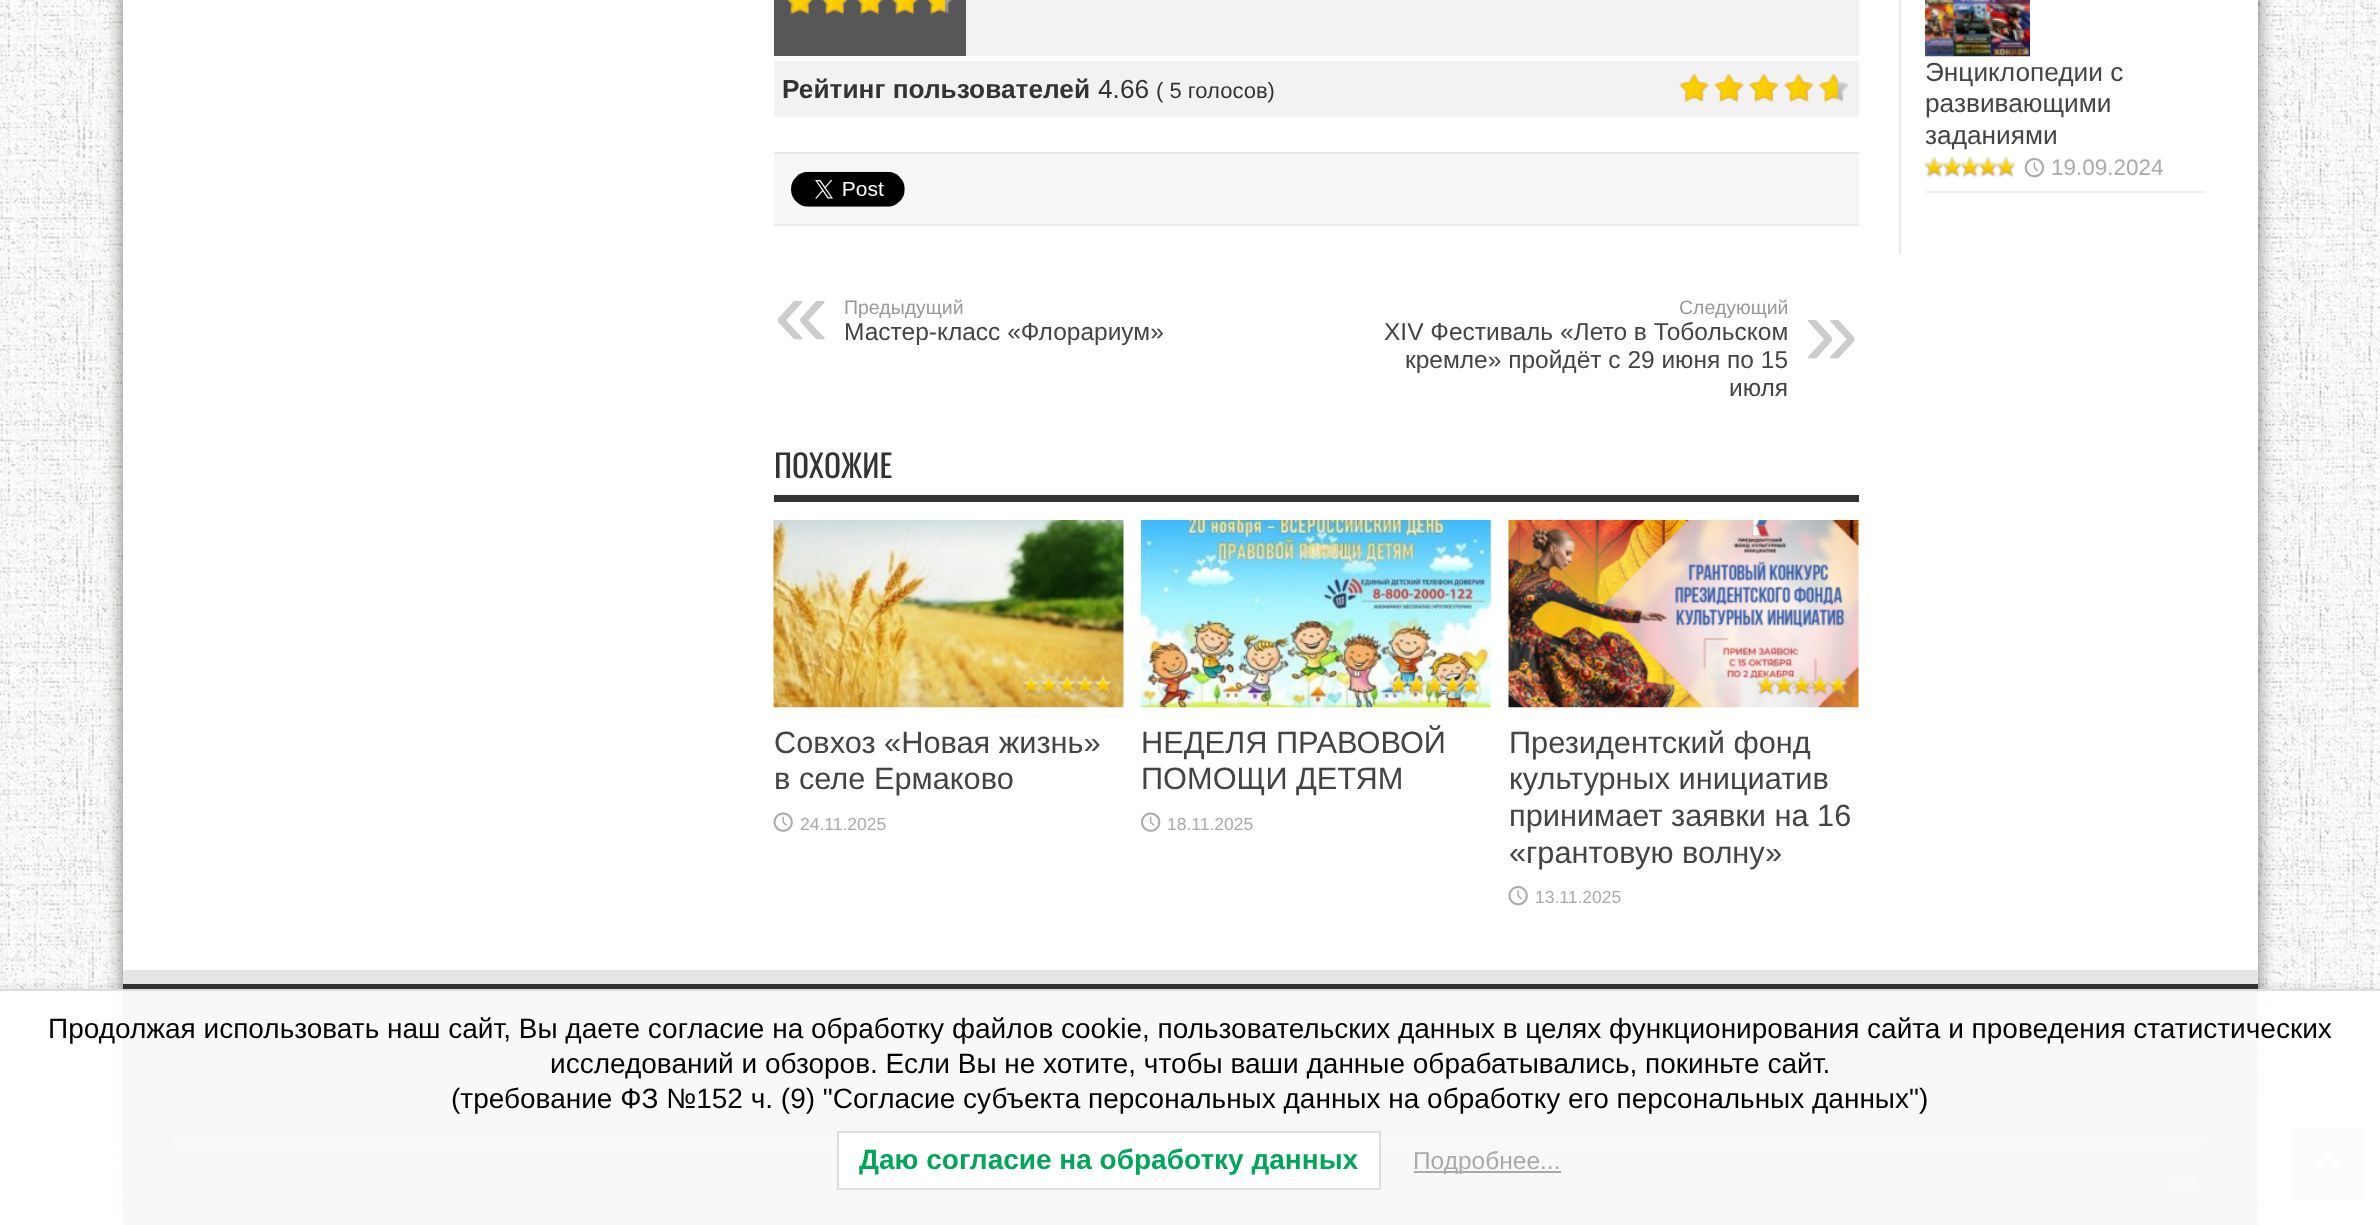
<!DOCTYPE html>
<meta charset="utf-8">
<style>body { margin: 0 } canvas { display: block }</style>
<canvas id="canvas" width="2380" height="1225"></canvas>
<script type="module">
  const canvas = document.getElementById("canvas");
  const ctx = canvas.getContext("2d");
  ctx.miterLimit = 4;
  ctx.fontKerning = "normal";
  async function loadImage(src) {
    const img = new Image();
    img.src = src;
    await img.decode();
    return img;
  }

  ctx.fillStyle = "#ffffff";
  ctx.fillRect(0, 0, 2380, 1225);
  ctx.drawImage(await loadImage("img1.png"), 0, 0, 2380, 1225);
  ctx.fillStyle = "rgba(0, 0, 0, 0.5)";
  ctx.filter = "blur(9px)";
  ctx.beginPath();
  ctx.rect(123, -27, 2135, 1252);
  ctx.fill();
  ctx.filter = "none";
  ctx.fillStyle = "#ffffff";
  ctx.fillRect(123, 0, 2135, 970);
  ctx.fillStyle = "#f2f2f2";
  ctx.fillRect(966, 0, 893, 56);
  ctx.fillStyle = "#575757";
  ctx.fillRect(774, 0, 192, 56);
  ctx.drawImage(await loadImage("img2.png"), 787, 0, 166, 15);
  ctx.drawImage(await loadImage("img3.png"), 787, 0, 158, 15);
  ctx.fillStyle = "#f2f2f2";
  ctx.fillRect(774, 61, 1085, 56);
  ctx.font = "bold 26.25px Liberation Sans";
  ctx.fillStyle = "#333333";
  ctx.fillText("Рейтинг пользователей", 782, 98);
  ctx.font = "26.25px Liberation Sans";
  ctx.fillText("4.66", 1098, 98);
  ctx.font = "22px Liberation Sans";
  ctx.fillText("( 5 голосов)", 1156, 98);
  ctx.drawImage(await loadImage("img4.png"), 1679, 74, 170, 28);
  ctx.drawImage(await loadImage("img5.png"), 1679, 73, 159, 30);
  ctx.fillStyle = "#f7f7f7";
  ctx.fillRect(774, 154, 1085, 70);
  ctx.fillStyle = "#eaeaea";
  ctx.fillRect(774, 152, 1085, 2);
  ctx.fillRect(774, 224, 1085, 2);
  ctx.drawImage(await loadImage("img6.png"), 791, 171, 114, 36);
  ctx.font = "98px Liberation Sans";
  ctx.fillStyle = "#cccccc";
  ctx.fillText("«", 774, 346);
  ctx.font = "19.5px Liberation Sans";
  ctx.fillStyle = "#999999";
  ctx.fillText("Предыдущий", 844, 314);
  ctx.font = "24.5px Liberation Sans";
  ctx.fillStyle = "#444444";
  ctx.fillText("Мастер-класс «Флорариум»", 844, 340);
  ctx.font = "19.5px Liberation Sans";
  ctx.fillStyle = "#999999";
  ctx.fillText("Следующий", 1679, 314);
  ctx.font = "24.5px Liberation Sans";
  ctx.fillStyle = "#444444";
  ctx.fillText("XIV Фестиваль «Лето в Тобольском", 1384, 340);
  ctx.font = "98px Liberation Sans";
  ctx.fillStyle = "#cccccc";
  ctx.fillText("»", 1804, 365);
  ctx.font = "24.5px Liberation Sans";
  ctx.fillStyle = "#444444";
  ctx.fillText("кремле» пройдёт с 29 июня по 15", 1405, 368);
  ctx.fillText("июля", 1729, 396);
  ctx.fillStyle = "#333333";
  ctx.fillRect(774, 495, 1085, 7);
  ctx.font = "31.5px Oswald";
  ctx.fillText("ПОХОЖИЕ", 774, 478);
  ctx.drawImage(await loadImage("img7.png"), 773, 520, 351, 188);
  ctx.drawImage(await loadImage("img8.png"), 1022, 674, 91, 22);
  ctx.drawImage(await loadImage("img9.png"), 1022, 673, 91, 23);
  ctx.font = "30.75px Liberation Sans";
  ctx.fillStyle = "#444444";
  ctx.fillText("Совхоз «Новая жизнь»", 774, 753);
  ctx.fillText("в селе Ермаково", 774, 789);
  ctx.drawImage(await loadImage("img10.png"), 773, 812, 20, 20);
  ctx.font = "17.5px Liberation Sans";
  ctx.fillStyle = "#aaaaaa";
  ctx.fillText("24.11.2025", 800, 830);
  ctx.drawImage(await loadImage("img11.png"), 1141, 520, 350, 188);
  ctx.drawImage(await loadImage("img12.png"), 1389, 674, 91, 22);
  ctx.drawImage(await loadImage("img13.png"), 1389, 674, 91, 22);
  ctx.font = "30.75px Liberation Sans";
  ctx.fillStyle = "#444444";
  ctx.fillText("НЕДЕЛЯ ПРАВОВОЙ", 1141, 753);
  ctx.fillText("ПОМОЩИ ДЕТЯМ", 1141, 789);
  ctx.drawImage(await loadImage("img14.png"), 1141, 812, 20, 20);
  ctx.font = "17.5px Liberation Sans";
  ctx.fillStyle = "#aaaaaa";
  ctx.fillText("18.11.2025", 1167, 830);
  ctx.drawImage(await loadImage("img15.png"), 1508, 520, 351, 188);
  ctx.drawImage(await loadImage("img16.png"), 1757, 674, 91, 22);
  ctx.drawImage(await loadImage("img17.png"), 1757, 674, 91, 22);
  ctx.font = "30.75px Liberation Sans";
  ctx.fillStyle = "#444444";
  ctx.fillText("Президентский фонд", 1509, 753);
  ctx.fillText("культурных инициатив", 1509, 789);
  ctx.fillText("принимает заявки на 16", 1509, 826);
  ctx.fillText("«грантовую волну»", 1509, 863);
  ctx.drawImage(await loadImage("img18.png"), 1508, 886, 20, 20);
  ctx.font = "17.5px Liberation Sans";
  ctx.fillStyle = "#aaaaaa";
  ctx.fillText("13.11.2025", 1535, 903);
  ctx.fillStyle = "#eaeaea";
  ctx.fillRect(1899, 0, 2, 254);
  ctx.fillStyle = "#f2f2f2";
  ctx.fillRect(1925, 191, 280, 2);
  ctx.drawImage(await loadImage("img19.png"), 1925, 0, 105, 57);
  ctx.font = "26.25px Liberation Sans";
  ctx.fillStyle = "#444444";
  ctx.fillText("Энциклопедии с", 1925, 81);
  ctx.fillText("развивающими", 1925, 112);
  ctx.fillText("заданиями", 1925, 144);
  ctx.drawImage(await loadImage("img20.png"), 1925, 156, 91, 20);
  ctx.drawImage(await loadImage("img21.png"), 1925, 156, 90, 22);
  ctx.drawImage(await loadImage("img22.png"), 2024, 158, 20, 20);
  ctx.font = "22.5px Liberation Sans";
  ctx.fillStyle = "#aaaaaa";
  ctx.fillText("19.09.2024", 2051, 175);
  ctx.fillStyle = "#e6e6e6";
  ctx.beginPath();
  ctx.moveTo(123, 970);
  ctx.lineTo(123, 984);
  ctx.lineTo(2258, 984);
  ctx.lineTo(2258, 1124);
  ctx.lineTo(2258, 970);
  ctx.closePath();
  ctx.fill();
  ctx.fillStyle = "#353535";
  ctx.fillRect(123, 984, 2135, 154);
  ctx.fillStyle = "#333333";
  ctx.fillRect(123, 1138, 2135, 87);
  ctx.fillStyle = "#575757";
  ctx.fillRect(175, 1138, 2030, 7);
  ctx.drawImage(await loadImage("img23.png"), 2168, 1174, 31, 18);
  ctx.fillStyle = "rgba(68, 68, 68, 0.7)";
  ctx.beginPath();
  ctx.roundRect(2293, 1129, 70, 70, 4);
  ctx.fill();
  ctx.drawImage(await loadImage("img24.png"), 2314, 1153, 28, 18);
  ctx.save();
  ctx.beginPath();
  ctx.rect(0, 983, 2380, 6);
  ctx.clip();
  ctx.fillStyle = "rgba(0, 0, 0, 0.1)";
  ctx.filter = "blur(7px)";
  ctx.beginPath();
  ctx.rect(0, 989, 2380, 236);
  ctx.fill();
  ctx.filter = "none";
  ctx.restore();
  ctx.fillStyle = "rgba(255, 255, 255, 0.97)";
  ctx.fillRect(0, 991, 2380, 234);
  ctx.fillStyle = "#dddddd";
  ctx.fillRect(0, 989, 2380, 2);
  ctx.font = "28px Liberation Sans";
  ctx.fillStyle = "#000000";
  ctx.fillText("Продолжая использовать наш сайт, Вы даете согласие на обработку файлов cookie, пользовательских данных в целях функционирования сайта и проведения статистических", 48, 1038);
  ctx.fillText("исследований и обзоров. Если Вы не хотите, чтобы ваши данные обрабатывались, покиньте сайт.", 550, 1073);
  ctx.fillText("(требование ФЗ №152 ч. (9) \"Согласие субъекта персональных данных на обработку его персональных данных\")", 451, 1108);
  ctx.fillStyle = "#ffffff";
  ctx.beginPath();
  ctx.rect(838, 1132, 542, 57);
  ctx.fill();
  ctx.strokeStyle = "#dddddd";
  ctx.lineWidth = 2;
  ctx.stroke();
  ctx.font = "bold 28px Liberation Sans";
  ctx.fillStyle = "#00a65a";
  ctx.fillText("Даю согласие на обработку данных", 859, 1169);
  ctx.fillStyle = "#aaaaaa";
  ctx.fillRect(1414, 1171, 147, 2);
  ctx.font = "24.5px Liberation Sans";
  ctx.fillText("Подробнее...", 1413, 1169);
</script>
